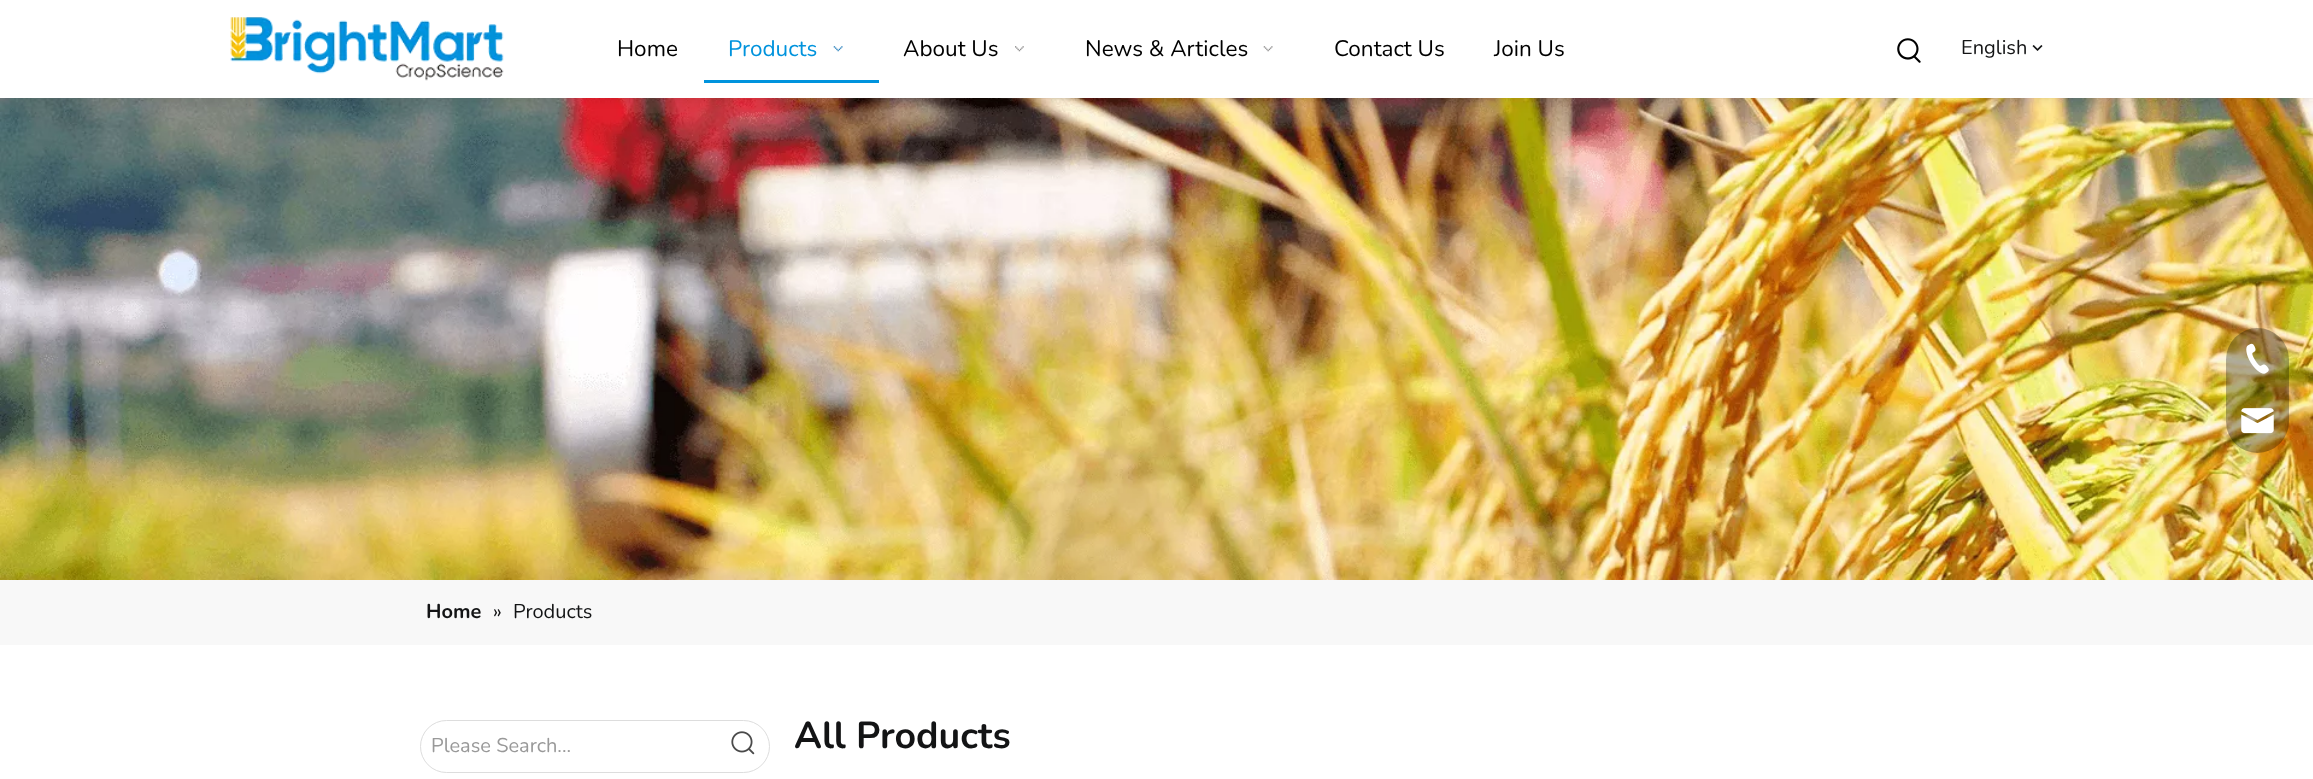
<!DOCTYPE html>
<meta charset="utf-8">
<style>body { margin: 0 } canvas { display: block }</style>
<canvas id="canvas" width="2313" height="779"></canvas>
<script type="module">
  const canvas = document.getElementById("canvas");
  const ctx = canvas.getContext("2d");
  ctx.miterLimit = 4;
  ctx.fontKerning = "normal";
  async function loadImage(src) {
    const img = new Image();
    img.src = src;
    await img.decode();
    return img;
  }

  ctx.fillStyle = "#ffffff";
  ctx.fillRect(0, 0, 2313, 779);
  ctx.drawImage(await loadImage("img9.png"), 0, 98, 2313, 482);
  ctx.fillStyle = "rgba(0, 0, 0, 0.1)";
  ctx.filter = "blur(6px)";
  ctx.beginPath();
  ctx.rect(0, 0, 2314, 98);
  ctx.fill();
  ctx.filter = "none";
  ctx.fillStyle = "#ffffff";
  ctx.fillRect(0, 0, 2313, 98);
  ctx.drawImage(await loadImage("img1.png"), 230, 17, 274, 64);
  ctx.font = "22.5px Nunito";
  ctx.fillStyle = "#000000";
  ctx.fillText("Home", 617, 56);
  ctx.fillStyle = "#0093dd";
  ctx.fillRect(704, 80, 175, 3);
  ctx.fillText("Products", 728, 56);
  ctx.drawImage(await loadImage("img2.png"), 833, 46, 10, 6);
  ctx.fillStyle = "#000000";
  ctx.fillText("About Us", 903, 56);
  ctx.drawImage(await loadImage("img3.png"), 1015, 46, 9, 6);
  ctx.fillText("News & Articles", 1085, 56);
  ctx.drawImage(await loadImage("img4.png"), 1263, 46, 10, 6);
  ctx.fillText("Contact Us", 1334, 56);
  ctx.fillText("Join Us", 1494, 56);
  ctx.drawImage(await loadImage("img5.png"), 1897, 38, 24, 25);
  ctx.font = "20px Nunito";
  ctx.fillStyle = "#131415";
  ctx.fillText("English", 1961, 54);
  ctx.drawImage(await loadImage("img6.png"), 2032, 45, 11, 6);
  ctx.fillStyle = "rgba(0, 0, 0, 0.3)";
  ctx.beginPath();
  ctx.roundRect(2226, 328, 63, 125, 31.5);
  ctx.fill();
  ctx.drawImage(await loadImage("img7.png"), 2246, 343, 23, 31);
  ctx.drawImage(await loadImage("img8.png"), 2241, 408, 33, 26);
  ctx.fillStyle = "#f8f8f8";
  ctx.fillRect(0, 580, 2313, 65);
  ctx.font = "bold 20px Nunito";
  ctx.fillStyle = "#131415";
  ctx.fillText("Home", 426, 618);
  ctx.font = "20px Nunito";
  ctx.fillText("»", 493, 618);
  ctx.fillText("Products", 513, 618);
  ctx.beginPath();
  ctx.roundRect(420.5, 720.5, 349, 52, 26);
  ctx.strokeStyle = "#dddddd";
  ctx.stroke();
  ctx.fillStyle = "#999999";
  ctx.fillText("Please Search...", 431, 752);
  ctx.drawImage(await loadImage("img10.png"), 731, 731, 24, 24);
  ctx.font = "bold 37.5px Nunito";
  ctx.fillStyle = "#131415";
  ctx.fillText("All Products", 794, 748);
</script>
